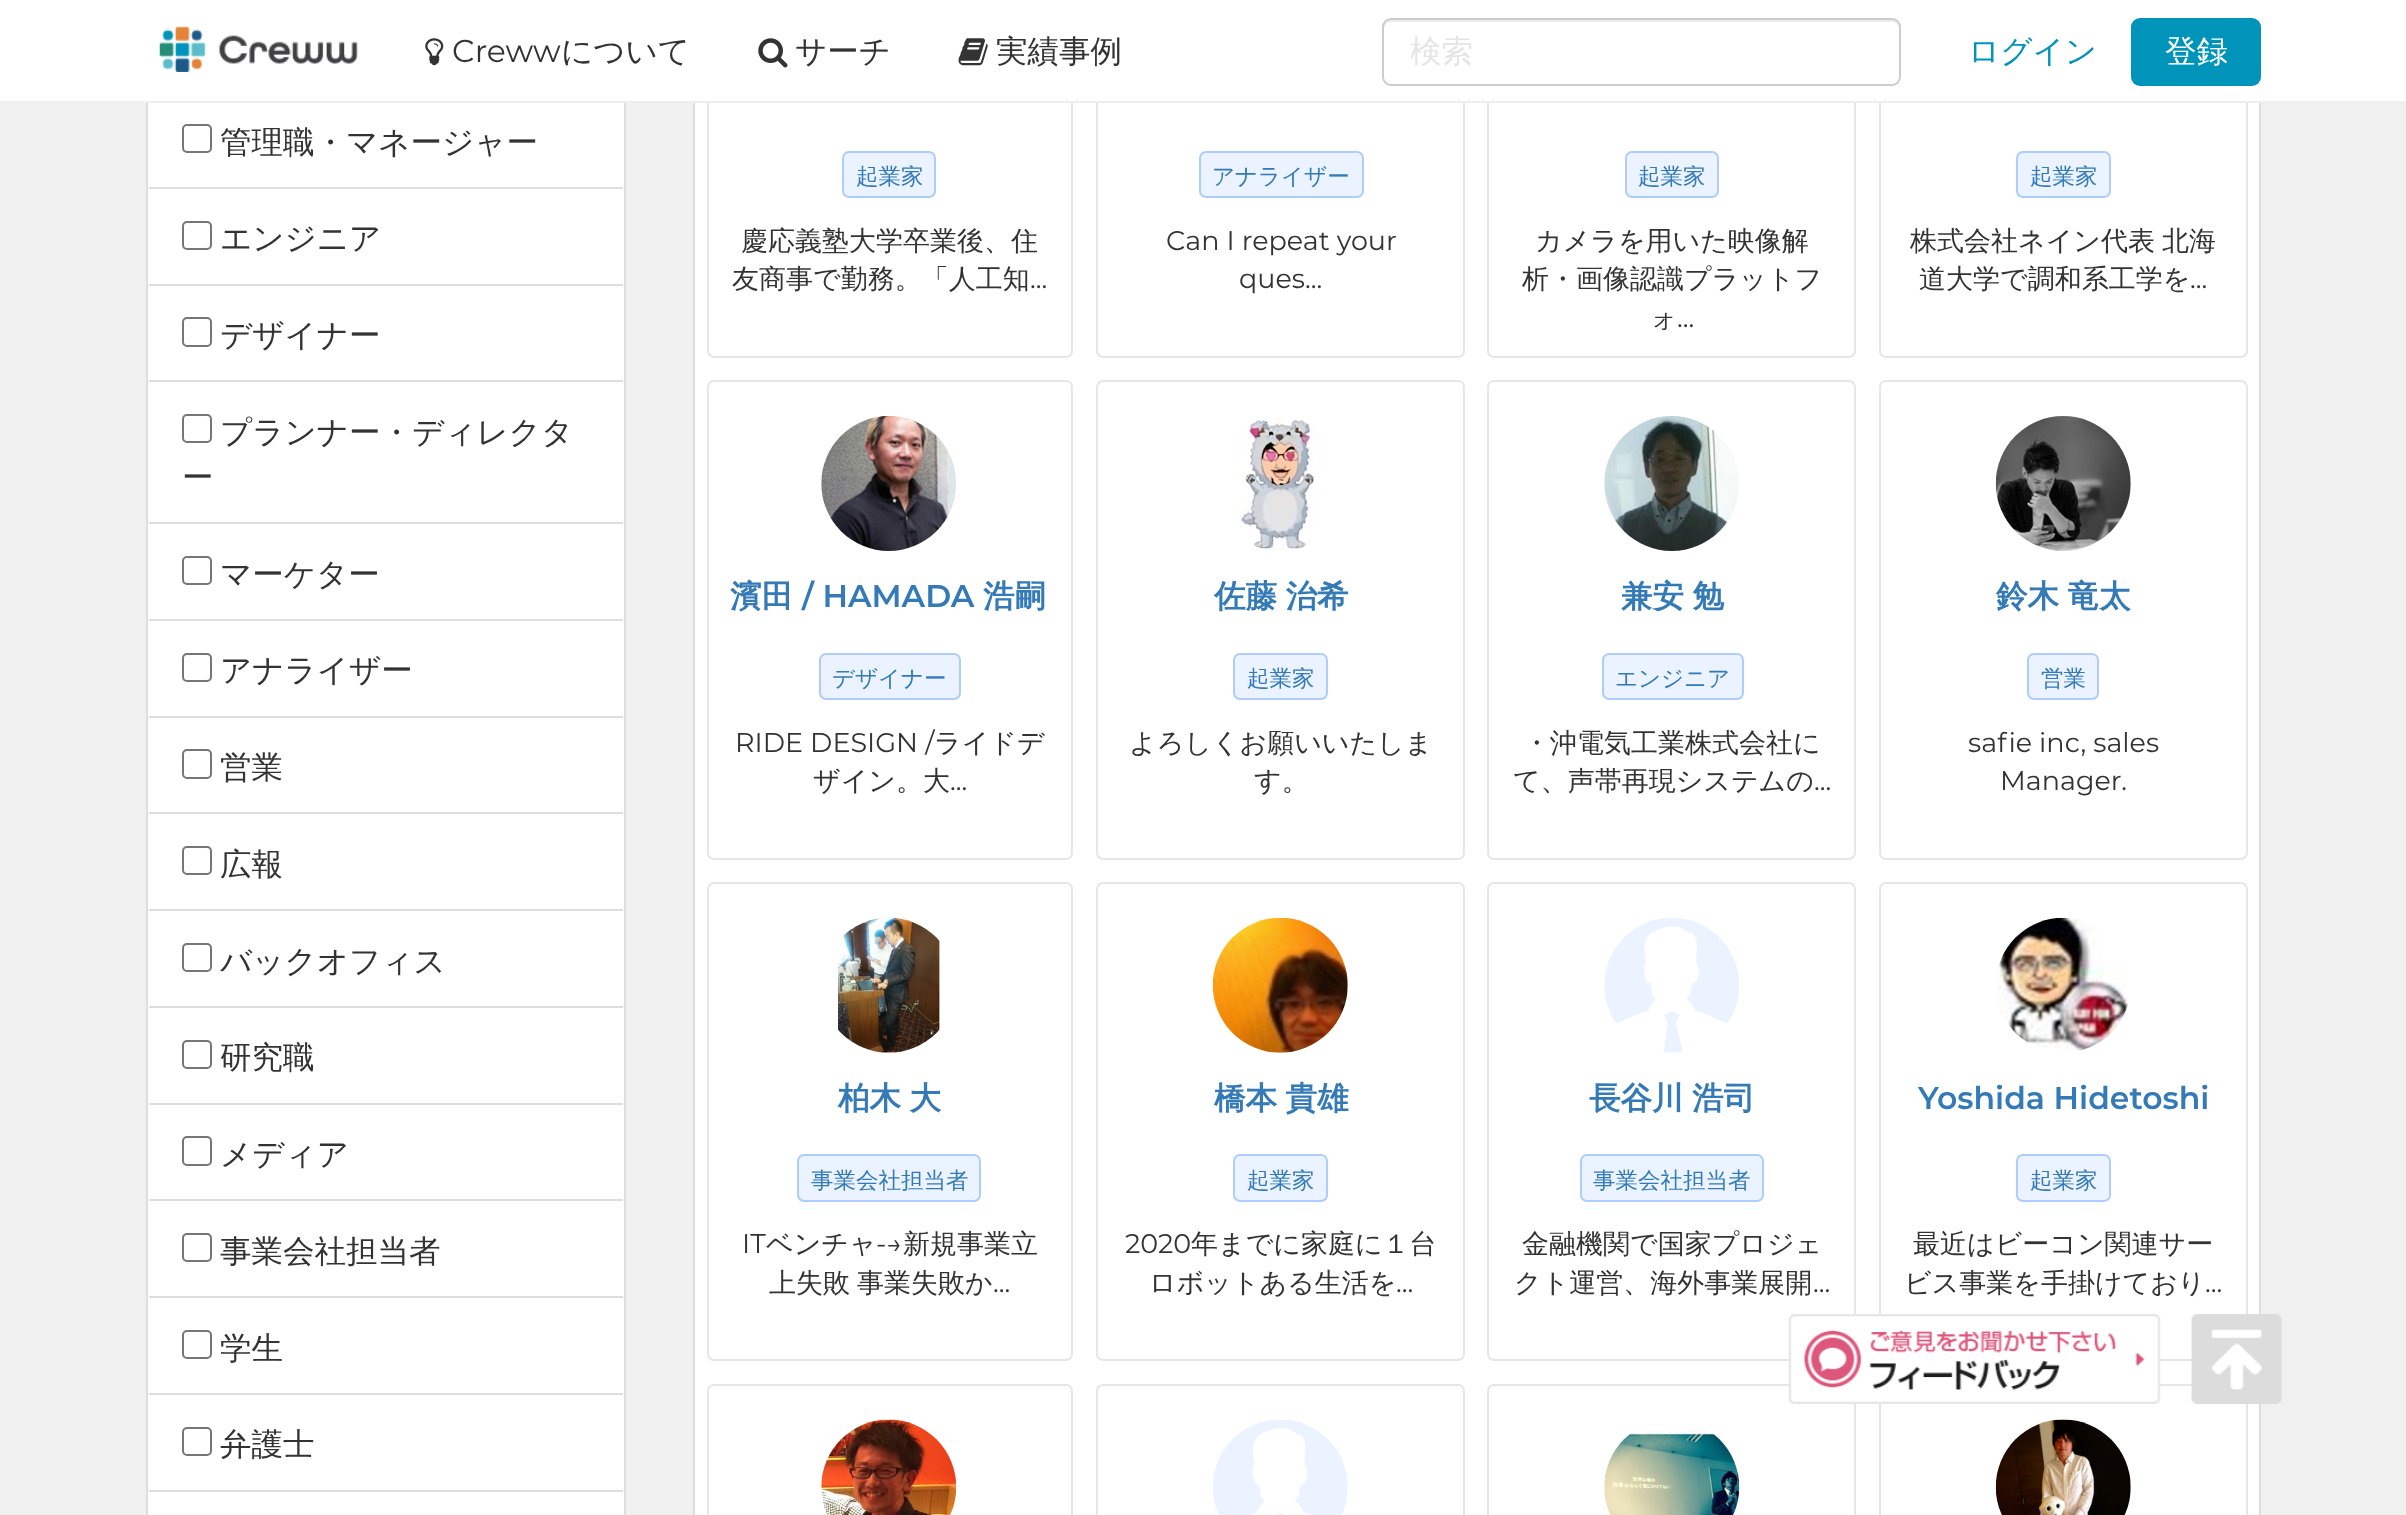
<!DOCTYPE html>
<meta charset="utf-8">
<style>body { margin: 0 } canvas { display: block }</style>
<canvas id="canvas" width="2406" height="1515"></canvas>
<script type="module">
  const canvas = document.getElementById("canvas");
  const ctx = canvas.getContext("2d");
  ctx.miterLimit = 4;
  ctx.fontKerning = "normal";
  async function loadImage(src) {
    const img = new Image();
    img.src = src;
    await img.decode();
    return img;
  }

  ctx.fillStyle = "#f0f0f0";
  ctx.fillRect(0, 0, 2406, 1515);
  ctx.fillStyle = "#ffffff";
  ctx.fillRect(148, 103, 476, 1412);
  ctx.strokeStyle = "#dddddd";
  ctx.lineWidth = 2;
  ctx.strokeRect(147, -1, 478, 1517);
  ctx.fillRect(695, 103, 1564, 1412);
  ctx.strokeRect(694, -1, 1566, 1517);
  ctx.beginPath();
  ctx.roundRect(708, -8, 364, 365, 6);
  ctx.strokeStyle = "#e6e6e6";
  ctx.stroke();
  ctx.beginPath();
  ctx.roundRect(1097, -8, 367, 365, 6);
  ctx.stroke();
  ctx.beginPath();
  ctx.roundRect(1488, -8, 367, 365, 6);
  ctx.stroke();
  ctx.beginPath();
  ctx.roundRect(1880, -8, 367, 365, 6);
  ctx.stroke();
  ctx.fillRect(0, 0, 2406, 101);
  ctx.fillStyle = "#eeeeee";
  ctx.fillRect(146, 101, 2115, 2);
  ctx.drawImage(await loadImage("img1.png"), 159, 26, 199, 46);
  ctx.drawImage(await loadImage("img2.png"), 425, 38, 19, 28);
  ctx.font = "31.5px Montserrat";
  ctx.fillStyle = "#333333";
  ctx.fillText("Creww", 452, 62);
  ctx.font = "500 31.5px WenQuanYi Zen Hei";
  ctx.fillText("について", 561, 62);
  ctx.drawImage(await loadImage("img3.png"), 758, 38, 30, 30);
  ctx.fillText("サーチ", 795, 62);
  ctx.drawImage(await loadImage("img4.png"), 958, 38, 30, 28);
  ctx.fillText("実績事例", 996, 62);
  ctx.fillStyle = "#ececec";
  ctx.beginPath();
  ctx.moveTo(1390, 22);
  ctx.lineTo(1892, 22);
  ctx.bezierCurveTo(1896, 22, 1899, 26, 1899, 29);
  ctx.bezierCurveTo(1899, 25, 1897, 20, 1892, 20);
  ctx.lineTo(1391, 20);
  ctx.bezierCurveTo(1386, 20, 1384, 25, 1384, 29);
  ctx.bezierCurveTo(1384, 26, 1387, 22, 1390, 22);
  ctx.closePath();
  ctx.fill();
  ctx.beginPath();
  ctx.roundRect(1383, 19, 517, 66, 8);
  ctx.strokeStyle = "#cccccc";
  ctx.stroke();
  ctx.save();
  ctx.beginPath();
  ctx.rect(1411, 32, 461, 42);
  ctx.clip();
  ctx.fillStyle = "#e5e5e5";
  ctx.fillText("検索", 1410, 62);
  ctx.restore();
  ctx.fillStyle = "#0094bb";
  ctx.fillText("ログイン", 1968, 62);
  ctx.beginPath();
  ctx.roundRect(2131, 18, 130, 68, 9);
  ctx.fill();
  ctx.fillStyle = "#ffffff";
  ctx.fillText("登録", 2165, 62);
  ctx.fillStyle = "#dddddd";
  ctx.fillRect(149, 187, 474, 2);
  ctx.beginPath();
  ctx.roundRect(183, 125, 28, 27, 4);
  ctx.strokeStyle = "#767676";
  ctx.stroke();
  ctx.fillStyle = "#333333";
  ctx.fillText("管理職・マネージャー", 220, 153);
  ctx.fillStyle = "#dddddd";
  ctx.fillRect(149, 284, 474, 2);
  ctx.beginPath();
  ctx.roundRect(183, 222, 28, 27, 4);
  ctx.stroke();
  ctx.fillStyle = "#333333";
  ctx.fillText("エンジニア", 220, 249);
  ctx.fillStyle = "#dddddd";
  ctx.fillRect(149, 380, 474, 2);
  ctx.beginPath();
  ctx.roundRect(183, 318, 28, 28, 4);
  ctx.stroke();
  ctx.fillStyle = "#333333";
  ctx.fillText("デザイナー", 220, 346);
  ctx.fillStyle = "#dddddd";
  ctx.fillRect(149, 522, 474, 2);
  ctx.beginPath();
  ctx.roundRect(183, 415, 28, 27, 4);
  ctx.stroke();
  ctx.fillStyle = "#333333";
  ctx.fillText("プランナー・ディレクタ", 220, 443);
  ctx.fillText("ー", 182, 488);
  ctx.fillStyle = "#dddddd";
  ctx.fillRect(149, 619, 474, 2);
  ctx.beginPath();
  ctx.roundRect(183, 557, 28, 27, 4);
  ctx.stroke();
  ctx.fillStyle = "#333333";
  ctx.fillText("マーケター", 220, 585);
  ctx.fillStyle = "#dddddd";
  ctx.fillRect(149, 716, 474, 2);
  ctx.beginPath();
  ctx.roundRect(183, 654, 28, 27, 4);
  ctx.stroke();
  ctx.fillStyle = "#333333";
  ctx.fillText("アナライザー", 220, 681);
  ctx.fillStyle = "#dddddd";
  ctx.fillRect(149, 812, 474, 2);
  ctx.beginPath();
  ctx.roundRect(183, 750, 28, 28, 4);
  ctx.stroke();
  ctx.fillStyle = "#333333";
  ctx.fillText("営業", 220, 778);
  ctx.fillStyle = "#dddddd";
  ctx.fillRect(149, 909, 474, 2);
  ctx.beginPath();
  ctx.roundRect(183, 847, 28, 27, 4);
  ctx.stroke();
  ctx.fillStyle = "#333333";
  ctx.fillText("広報", 220, 875);
  ctx.fillStyle = "#dddddd";
  ctx.fillRect(149, 1006, 474, 2);
  ctx.beginPath();
  ctx.roundRect(183, 944, 28, 27, 4);
  ctx.stroke();
  ctx.fillStyle = "#333333";
  ctx.fillText("バックオフィス", 220, 972);
  ctx.fillStyle = "#dddddd";
  ctx.fillRect(149, 1103, 474, 2);
  ctx.beginPath();
  ctx.roundRect(183, 1041, 28, 27, 4);
  ctx.stroke();
  ctx.fillStyle = "#333333";
  ctx.fillText("研究職", 220, 1068);
  ctx.fillStyle = "#dddddd";
  ctx.fillRect(149, 1199, 474, 2);
  ctx.beginPath();
  ctx.roundRect(183, 1137, 28, 28, 4);
  ctx.stroke();
  ctx.fillStyle = "#333333";
  ctx.fillText("メディア", 220, 1165);
  ctx.fillStyle = "#dddddd";
  ctx.fillRect(149, 1296, 474, 2);
  ctx.beginPath();
  ctx.roundRect(183, 1234, 28, 27, 4);
  ctx.stroke();
  ctx.fillStyle = "#333333";
  ctx.fillText("事業会社担当者", 220, 1262);
  ctx.fillStyle = "#dddddd";
  ctx.fillRect(149, 1393, 474, 2);
  ctx.beginPath();
  ctx.roundRect(183, 1331, 28, 27, 4);
  ctx.stroke();
  ctx.fillStyle = "#333333";
  ctx.fillText("学生", 220, 1359);
  ctx.fillStyle = "#dddddd";
  ctx.fillRect(149, 1490, 474, 2);
  ctx.beginPath();
  ctx.roundRect(183, 1428, 28, 27, 4);
  ctx.stroke();
  ctx.fillStyle = "#333333";
  ctx.fillText("弁護士", 220, 1455);
  ctx.fillStyle = "#eaf3ff";
  ctx.beginPath();
  ctx.roundRect(843, 152, 92, 45, 6);
  ctx.fill();
  ctx.strokeStyle = "#aecdfe";
  ctx.stroke();
  ctx.font = "500 22.5px WenQuanYi Zen Hei";
  ctx.fillStyle = "#337ab7";
  ctx.fillText("起業家", 856, 184);
  ctx.font = "500 27px WenQuanYi Zen Hei";
  ctx.fillStyle = "#333333";
  ctx.fillText("慶応義塾大学卒業後、住", 741, 250);
  ctx.fillText("友商事で勤務。「人工知", 732, 288);
  ctx.font = "27px Montserrat";
  ctx.fillText("...", 1030, 288);
  ctx.fillStyle = "#eaf3ff";
  ctx.beginPath();
  ctx.roundRect(1200, 152, 163, 45, 6);
  ctx.fill();
  ctx.stroke();
  ctx.font = "500 22.5px WenQuanYi Zen Hei";
  ctx.fillStyle = "#337ab7";
  ctx.fillText("アナライザー", 1212, 184);
  ctx.font = "27px Montserrat";
  ctx.fillStyle = "#333333";
  ctx.fillText("Can I repeat your", 1166, 250);
  ctx.fillText("ques...", 1239, 288);
  ctx.fillStyle = "#eaf3ff";
  ctx.beginPath();
  ctx.roundRect(1626, 152, 92, 45, 6);
  ctx.fill();
  ctx.stroke();
  ctx.font = "500 22.5px WenQuanYi Zen Hei";
  ctx.fillStyle = "#337ab7";
  ctx.fillText("起業家", 1638, 184);
  ctx.font = "500 27px WenQuanYi Zen Hei";
  ctx.fillStyle = "#333333";
  ctx.fillText("カメラを用いた映像解", 1535, 250);
  ctx.fillText("析・画像認識プラットフ", 1522, 288);
  ctx.fillText("ォ", 1650, 327);
  ctx.font = "27px Montserrat";
  ctx.fillText("...", 1677, 327);
  ctx.fillStyle = "#eaf3ff";
  ctx.beginPath();
  ctx.roundRect(2017, 152, 93, 45, 6);
  ctx.fill();
  ctx.stroke();
  ctx.font = "500 22.5px WenQuanYi Zen Hei";
  ctx.fillStyle = "#337ab7";
  ctx.fillText("起業家", 2030, 184);
  ctx.wordSpacing = "-1px";
  ctx.font = "500 27px WenQuanYi Zen Hei";
  ctx.fillStyle = "#333333";
  ctx.fillText("株式会社ネイン代表 北海", 1910, 250);
  ctx.wordSpacing = "0px";
  ctx.fillText("道大学で調和系工学を", 1919, 288);
  ctx.font = "27px Montserrat";
  ctx.fillText("...", 2190, 288);
  ctx.beginPath();
  ctx.roundRect(708, 381, 364, 478, 6);
  ctx.strokeStyle = "#e6e6e6";
  ctx.stroke();
  ctx.drawImage(await loadImage("img5.png"), 821, 416, 135, 135);
  ctx.font = "bold 31.5px WenQuanYi Zen Hei";
  ctx.fillStyle = "#337ab7";
  ctx.fillText("濱田", 730, 607);
  ctx.font = "600 31.5px Montserrat";
  ctx.fillText("/ HAMADA", 802, 607);
  ctx.font = "bold 31.5px WenQuanYi Zen Hei";
  ctx.fillText("浩嗣", 983, 607);
  ctx.fillStyle = "#eaf3ff";
  ctx.beginPath();
  ctx.roundRect(820, 654, 140, 45, 6);
  ctx.fill();
  ctx.strokeStyle = "#aecdfe";
  ctx.stroke();
  ctx.font = "500 22.5px WenQuanYi Zen Hei";
  ctx.fillStyle = "#337ab7";
  ctx.fillText("デザイナー", 832, 686);
  ctx.font = "27px Montserrat";
  ctx.fillStyle = "#333333";
  ctx.fillText("RIDE DESIGN /", 735, 752);
  ctx.font = "500 27px WenQuanYi Zen Hei";
  ctx.fillText("ライドデ", 934, 752);
  ctx.fillText("ザイン。大", 813, 790);
  ctx.font = "27px Montserrat";
  ctx.fillText("...", 950, 790);
  ctx.beginPath();
  ctx.roundRect(1097, 381, 367, 478, 6);
  ctx.strokeStyle = "#e6e6e6";
  ctx.stroke();
  ctx.drawImage(await loadImage("img6.png"), 1237, 418, 88, 133);
  ctx.wordSpacing = "-1px";
  ctx.font = "bold 31.5px WenQuanYi Zen Hei";
  ctx.fillStyle = "#337ab7";
  ctx.fillText("佐藤 治希", 1214, 607);
  ctx.fillStyle = "#eaf3ff";
  ctx.beginPath();
  ctx.roundRect(1234, 654, 93, 45, 6);
  ctx.fill();
  ctx.strokeStyle = "#aecdfe";
  ctx.stroke();
  ctx.wordSpacing = "0px";
  ctx.font = "500 22.5px WenQuanYi Zen Hei";
  ctx.fillStyle = "#337ab7";
  ctx.fillText("起業家", 1247, 686);
  ctx.font = "500 27px WenQuanYi Zen Hei";
  ctx.fillStyle = "#333333";
  ctx.fillText("よろしくお願いいたしま", 1129, 752);
  ctx.fillText("す。", 1254, 790);
  ctx.beginPath();
  ctx.roundRect(1488, 381, 367, 478, 6);
  ctx.strokeStyle = "#e6e6e6";
  ctx.stroke();
  ctx.drawImage(await loadImage("img7.png"), 1604, 416, 135, 135);
  ctx.wordSpacing = "-1px";
  ctx.font = "bold 31.5px WenQuanYi Zen Hei";
  ctx.fillStyle = "#337ab7";
  ctx.fillText("兼安 勉", 1621, 607);
  ctx.fillStyle = "#eaf3ff";
  ctx.beginPath();
  ctx.roundRect(1603, 654, 140, 45, 6);
  ctx.fill();
  ctx.strokeStyle = "#aecdfe";
  ctx.stroke();
  ctx.wordSpacing = "0px";
  ctx.font = "500 22.5px WenQuanYi Zen Hei";
  ctx.fillStyle = "#337ab7";
  ctx.fillText("エンジニア", 1615, 686);
  ctx.font = "500 27px WenQuanYi Zen Hei";
  ctx.fillStyle = "#333333";
  ctx.fillText("・沖電気工業株式会社に", 1523, 752);
  ctx.fillText("て、声帯再現システムの", 1513, 790);
  ctx.font = "27px Montserrat";
  ctx.fillText("...", 1814, 790);
  ctx.beginPath();
  ctx.roundRect(1880, 381, 367, 478, 6);
  ctx.strokeStyle = "#e6e6e6";
  ctx.stroke();
  ctx.drawImage(await loadImage("img8.png"), 1995, 416, 136, 135);
  ctx.wordSpacing = "-1px";
  ctx.font = "bold 31.5px WenQuanYi Zen Hei";
  ctx.fillStyle = "#337ab7";
  ctx.fillText("鈴木 竜太", 1996, 607);
  ctx.fillStyle = "#eaf3ff";
  ctx.beginPath();
  ctx.roundRect(2028, 654, 70, 45, 6);
  ctx.fill();
  ctx.strokeStyle = "#aecdfe";
  ctx.stroke();
  ctx.wordSpacing = "0px";
  ctx.font = "500 22.5px WenQuanYi Zen Hei";
  ctx.fillStyle = "#337ab7";
  ctx.fillText("営業", 2041, 686);
  ctx.font = "27px Montserrat";
  ctx.fillStyle = "#333333";
  ctx.fillText("safie inc, sales", 1968, 752);
  ctx.fillText("Manager.", 2000, 790);
  ctx.beginPath();
  ctx.roundRect(708, 883, 364, 477, 6);
  ctx.strokeStyle = "#e6e6e6";
  ctx.stroke();
  ctx.drawImage(await loadImage("img9.png"), 838, 918, 102, 135);
  ctx.wordSpacing = "-1px";
  ctx.font = "bold 31.5px WenQuanYi Zen Hei";
  ctx.fillStyle = "#337ab7";
  ctx.fillText("柏木 大", 838, 1109);
  ctx.fillStyle = "#eaf3ff";
  ctx.beginPath();
  ctx.roundRect(798, 1155, 182, 46, 6);
  ctx.fill();
  ctx.strokeStyle = "#aecdfe";
  ctx.stroke();
  ctx.wordSpacing = "0px";
  ctx.font = "500 22.5px WenQuanYi Zen Hei";
  ctx.fillStyle = "#337ab7";
  ctx.fillText("事業会社担当者", 811, 1188);
  ctx.font = "27px Montserrat";
  ctx.fillStyle = "#333333";
  ctx.fillText("IT", 742, 1253);
  ctx.font = "500 27px WenQuanYi Zen Hei";
  ctx.fillText("ベンチャ", 766, 1253);
  ctx.font = "27px Montserrat";
  ctx.fillText("-→", 876, 1253);
  ctx.font = "500 27px WenQuanYi Zen Hei";
  ctx.fillText("新規事業立", 903, 1253);
  ctx.wordSpacing = "-1px";
  ctx.fillText("上失敗 事業失敗か", 769, 1292);
  ctx.wordSpacing = "0px";
  ctx.font = "27px Montserrat";
  ctx.fillText("...", 993, 1292);
  ctx.beginPath();
  ctx.roundRect(1097, 883, 367, 477, 6);
  ctx.strokeStyle = "#e6e6e6";
  ctx.stroke();
  ctx.drawImage(await loadImage("img10.png"), 1212, 917, 136, 136);
  ctx.wordSpacing = "-1px";
  ctx.font = "bold 31.5px WenQuanYi Zen Hei";
  ctx.fillStyle = "#337ab7";
  ctx.fillText("橋本 貴雄", 1214, 1109);
  ctx.fillStyle = "#eaf3ff";
  ctx.beginPath();
  ctx.roundRect(1234, 1155, 93, 46, 6);
  ctx.fill();
  ctx.strokeStyle = "#aecdfe";
  ctx.stroke();
  ctx.wordSpacing = "0px";
  ctx.font = "500 22.5px WenQuanYi Zen Hei";
  ctx.fillStyle = "#337ab7";
  ctx.fillText("起業家", 1247, 1188);
  ctx.font = "27px Montserrat";
  ctx.fillStyle = "#333333";
  ctx.fillText("2020", 1125, 1253);
  ctx.font = "500 27px WenQuanYi Zen Hei";
  ctx.fillText("年までに家庭に１台", 1191, 1253);
  ctx.fillText("ロボットある生活を", 1149, 1292);
  ctx.font = "27px Montserrat";
  ctx.fillText("...", 1396, 1292);
  ctx.beginPath();
  ctx.roundRect(1488, 883, 367, 477, 6);
  ctx.strokeStyle = "#e6e6e6";
  ctx.stroke();
  ctx.drawImage(await loadImage("img11.png"), 1604, 918, 135, 135);
  ctx.wordSpacing = "-1px";
  ctx.font = "bold 31.5px WenQuanYi Zen Hei";
  ctx.fillStyle = "#337ab7";
  ctx.fillText("長谷川 浩司", 1589, 1109);
  ctx.fillStyle = "#eaf3ff";
  ctx.beginPath();
  ctx.roundRect(1581, 1155, 182, 46, 6);
  ctx.fill();
  ctx.strokeStyle = "#aecdfe";
  ctx.stroke();
  ctx.wordSpacing = "0px";
  ctx.font = "500 22.5px WenQuanYi Zen Hei";
  ctx.fillStyle = "#337ab7";
  ctx.fillText("事業会社担当者", 1593, 1188);
  ctx.font = "500 27px WenQuanYi Zen Hei";
  ctx.fillStyle = "#333333";
  ctx.fillText("金融機関で国家プロジェ", 1522, 1253);
  ctx.fillText("クト運営、海外事業展開", 1514, 1292);
  ctx.font = "27px Montserrat";
  ctx.fillText("...", 1813, 1292);
  ctx.beginPath();
  ctx.roundRect(1880, 883, 367, 477, 6);
  ctx.strokeStyle = "#e6e6e6";
  ctx.stroke();
  ctx.drawImage(await loadImage("img12.png"), 1996, 917, 132, 134);
  ctx.font = "600 31.5px Montserrat";
  ctx.fillStyle = "#337ab7";
  ctx.fillText("Yoshida Hidetoshi", 1918, 1109);
  ctx.fillStyle = "#eaf3ff";
  ctx.beginPath();
  ctx.roundRect(2017, 1155, 93, 46, 6);
  ctx.fill();
  ctx.strokeStyle = "#aecdfe";
  ctx.stroke();
  ctx.font = "500 22.5px WenQuanYi Zen Hei";
  ctx.fillStyle = "#337ab7";
  ctx.fillText("起業家", 2030, 1188);
  ctx.font = "500 27px WenQuanYi Zen Hei";
  ctx.fillStyle = "#333333";
  ctx.fillText("最近はビーコン関連サー", 1913, 1253);
  ctx.fillText("ビス事業を手掛けており", 1904, 1292);
  ctx.font = "27px Montserrat";
  ctx.fillText("...", 2205, 1292);
  ctx.beginPath();
  ctx.roundRect(708, 1385, 364, 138, 6);
  ctx.strokeStyle = "#e6e6e6";
  ctx.stroke();
  ctx.drawImage(await loadImage("img13.png"), 821, 1419, 136, 96);
  ctx.beginPath();
  ctx.roundRect(1097, 1385, 367, 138, 6);
  ctx.stroke();
  ctx.drawImage(await loadImage("img14.png"), 1213, 1419, 135, 96);
  ctx.beginPath();
  ctx.roundRect(1488, 1385, 367, 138, 6);
  ctx.stroke();
  ctx.drawImage(await loadImage("img15.png"), 1604, 1430, 136, 85);
  ctx.strokeRect(1880, 1385, 367, 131);
  ctx.drawImage(await loadImage("img16.png"), 1995, 1419, 136, 96);
  ctx.drawImage(await loadImage("img17.png"), 1788, 1314, 373, 90);
  ctx.drawImage(await loadImage("img18.png"), 2191, 1314, 91, 90);
</script>
